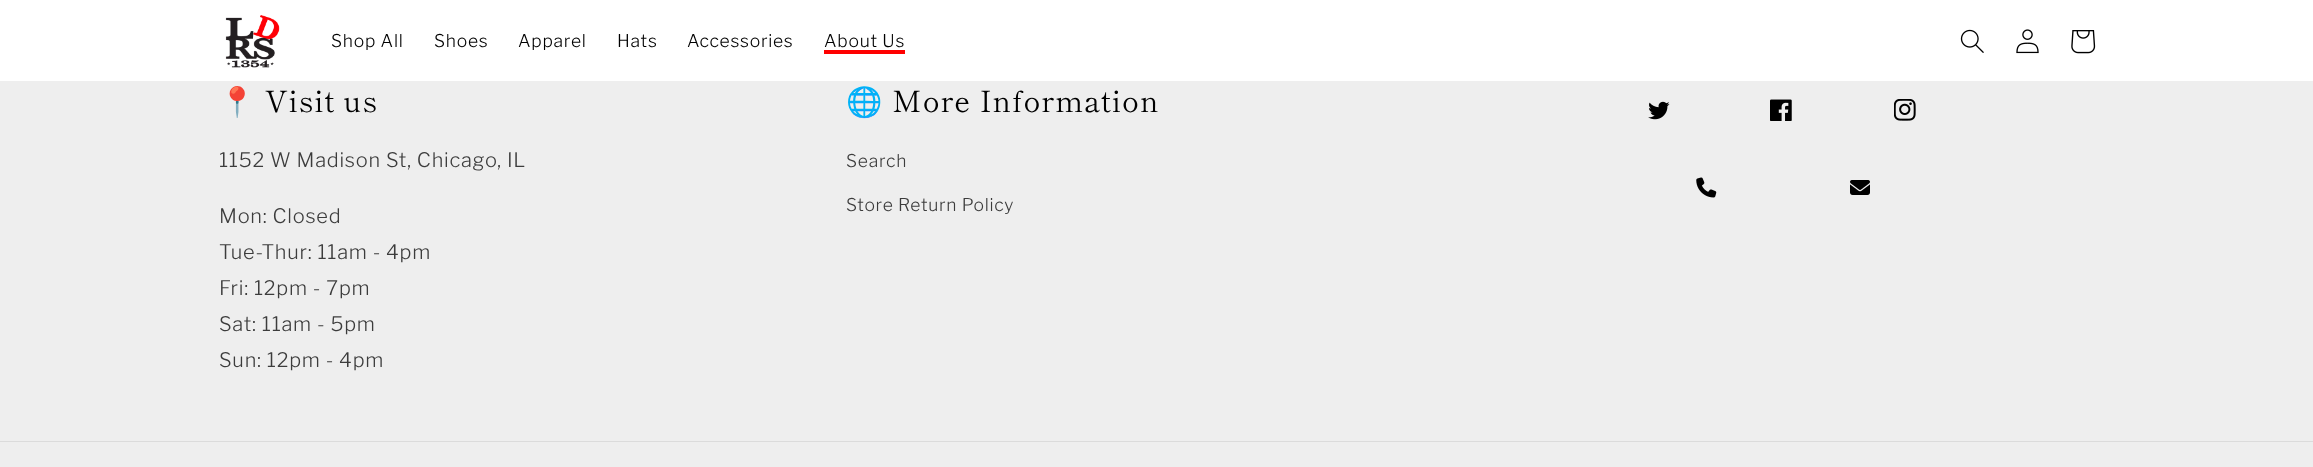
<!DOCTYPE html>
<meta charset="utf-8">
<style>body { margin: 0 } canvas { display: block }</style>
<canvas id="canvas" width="2313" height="467"></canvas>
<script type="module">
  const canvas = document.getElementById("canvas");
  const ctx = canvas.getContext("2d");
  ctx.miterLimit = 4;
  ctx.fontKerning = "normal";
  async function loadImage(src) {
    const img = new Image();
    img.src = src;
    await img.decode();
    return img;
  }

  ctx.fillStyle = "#eeeeee";
  ctx.fillRect(0, 0, 2313, 467);
  ctx.fillStyle = "#ffffff";
  ctx.fillRect(0, 0, 2313, 81);
  ctx.drawImage(await loadImage("img1.png"), 225, 15, 55, 53);
  ctx.letterSpacing = "0.75px";
  ctx.font = "300 17.5px Libre Franklin";
  ctx.fillStyle = "#000000";
  ctx.fillText("Shop All", 331, 47);
  ctx.fillText("Shoes", 434, 47);
  ctx.fillText("Apparel", 518, 47);
  ctx.fillText("Hats", 617, 47);
  ctx.fillText("Accessories", 687, 47);
  ctx.fillText("About Us", 824, 47);
  ctx.fillStyle = "#ff0000";
  ctx.fillRect(824, 50, 81, 4);
  ctx.drawImage(await loadImage("img2.png"), 1960, 29, 24, 24);
  ctx.drawImage(await loadImage("img3.png"), 2016, 29, 23, 25);
  ctx.drawImage(await loadImage("img4.png"), 2071, 30, 25, 24);
  ctx.letterSpacing = "1px";
  ctx.font = "29.25px Noto Color Emoji";
  ctx.fillStyle = "#000000";
  ctx.fillText("📍", 219, 112);
  ctx.font = "29.25px Shippori Mincho";
  ctx.fillText("Visit us", 265, 112);
  ctx.letterSpacing = "0.75px";
  ctx.font = "300 20px Libre Franklin";
  ctx.fillStyle = "#3c3c3c";
  ctx.fillText("1152 W Madison St, Chicago, IL", 219, 167);
  ctx.fillText("Mon: Closed", 219, 223);
  ctx.fillText("Tue-Thur: 11am - 4pm", 219, 259);
  ctx.fillText("Fri: 12pm - 7pm", 219, 295);
  ctx.fillText("Sat: 11am - 5pm", 219, 331);
  ctx.fillText("Sun: 12pm - 4pm", 219, 367);
  ctx.letterSpacing = "1px";
  ctx.font = "29.25px Noto Color Emoji";
  ctx.fillStyle = "#000000";
  ctx.fillText("🌐", 846, 112);
  ctx.font = "29.25px Shippori Mincho";
  ctx.fillText("More Information", 892, 112);
  ctx.letterSpacing = "0.75px";
  ctx.font = "300 17.5px Libre Franklin";
  ctx.fillStyle = "#3c3c3c";
  ctx.fillText("Search", 846, 167);
  ctx.fillText("Store Return Policy", 846, 211);
  ctx.drawImage(await loadImage("img5.png"), 1648, 101, 22, 19);
  ctx.drawImage(await loadImage("img6.png"), 1770, 99, 22, 22);
  ctx.drawImage(await loadImage("img7.png"), 1894, 99, 22, 22);
  ctx.drawImage(await loadImage("img8.png"), 1696, 177, 21, 21);
  ctx.drawImage(await loadImage("img9.png"), 1850, 180, 20, 15);
  ctx.fillStyle = "#dbdbdb";
  ctx.fillRect(0, 441, 2313, 1);
</script>
